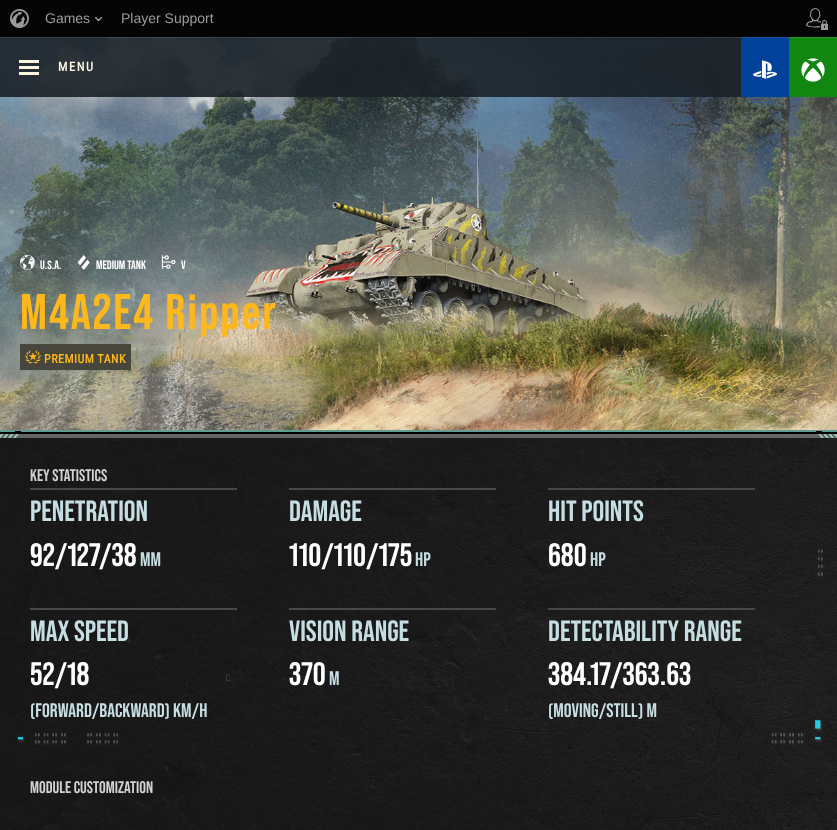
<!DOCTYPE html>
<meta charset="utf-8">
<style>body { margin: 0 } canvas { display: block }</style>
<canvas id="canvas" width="837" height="830"></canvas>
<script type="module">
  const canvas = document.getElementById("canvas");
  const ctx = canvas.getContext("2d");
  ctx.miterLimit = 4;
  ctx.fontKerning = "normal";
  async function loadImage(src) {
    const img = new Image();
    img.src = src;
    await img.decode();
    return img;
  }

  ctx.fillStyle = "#ffffff";
  ctx.fillRect(0, 0, 837, 830);
  ctx.fillStyle = "#050505";
  ctx.fillRect(0, 0, 837, 37);
  ctx.drawImage(await loadImage("img7.png"), 0, 37, 837, 393);
  ctx.fillStyle = "rgba(27, 35, 41, 0.92)";
  ctx.fillRect(0, 37, 741, 60);
  ctx.fillStyle = "#004199";
  ctx.fillRect(741, 37, 48, 60);
  ctx.fillStyle = "#118711";
  ctx.fillRect(789, 37, 48, 60);
  ctx.strokeStyle = "rgba(255, 255, 255, 0.1)";
  ctx.strokeRect(-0.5, -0.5, 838, 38);
  ctx.drawImage(await loadImage("img1.png"), 10, 9, 19, 19);
  ctx.font = "14px Liberation Sans";
  ctx.fillStyle = "#9b9b9b";
  ctx.fillText("Games", 45, 23);
  ctx.drawImage(await loadImage("img2.png"), 95, 17, 7, 4);
  ctx.fillText("Player Support", 121, 23);
  ctx.drawImage(await loadImage("img3.png"), 806, 8, 22, 22);
  ctx.drawImage(await loadImage("img4.png"), 753, 60, 24, 19);
  ctx.drawImage(await loadImage("img5.png"), 801, 58, 24, 24);
  ctx.fillStyle = "#f9f5e1";
  ctx.fillRect(19, 60, 20, 3);
  ctx.fillRect(19, 66, 20, 3);
  ctx.fillRect(19, 72, 20, 3);
  ctx.letterSpacing = "1.5px";
  ctx.font = "bold 12.5px Roboto Condensed";
  ctx.fillText("MENU", 58, 71);
  ctx.drawImage(await loadImage("img6.png"), 0, 438, 837, 392);
  ctx.drawImage(await loadImage("img8.png"), 20, 255, 15, 15);
  ctx.letterSpacing = "0px";
  ctx.font = "bold 12px Bebas Neue";
  ctx.fillStyle = "#ffffff";
  ctx.fillText("U.S.A.", 40, 269);
  ctx.drawImage(await loadImage("img9.png"), 77, 255, 13, 15);
  ctx.fillText("MEDIUM TANK", 96, 269);
  ctx.drawImage(await loadImage("img10.png"), 161, 255, 15, 14);
  ctx.fillText("V", 181, 269);
  ctx.drawImage(await loadImage("img12.png"), 245, 115, 350, 223);
  ctx.drawImage(await loadImage("img13.png"), 174, 290, 567, 69);
  ctx.drawImage(await loadImage("img14.png"), 196, 300, 550, 61);
  ctx.letterSpacing = "2px";
  ctx.font = "bold 50px Bebas Neue";
  ctx.fillStyle = "#ffb81c";
  ctx.fillText("M4A2E4 Ripper", 20, 329);
  ctx.fillStyle = "#46463c";
  ctx.fillRect(20, 344, 111, 26);
  ctx.drawImage(await loadImage("img11.png"), 25, 350, 16, 14);
  ctx.letterSpacing = "0.5px";
  ctx.font = "bold 12px Roboto Condensed";
  ctx.fillStyle = "#ffb81c";
  ctx.fillText("PREMIUM TANK", 44, 363);
  ctx.drawImage(await loadImage("img15.png"), 0, 430, 24, 8);
  ctx.drawImage(await loadImage("img16.png"), 24, 430, 789, 8);
  ctx.drawImage(await loadImage("img17.png"), 813, 430, 24, 8);
  ctx.letterSpacing = "0px";
  ctx.font = "bold 16.75px Bebas Neue";
  ctx.fillStyle = "#d1d1d1";
  ctx.fillText("KEY STATISTICS", 30, 481);
  ctx.fillStyle = "#484848";
  ctx.fillRect(30, 488, 207, 2);
  ctx.font = "bold 29.25px Bebas Neue";
  ctx.fillStyle = "#c6dee1";
  ctx.fillText("PENETRATION", 30, 521);
  ctx.font = "bold 32.5px Bebas Neue";
  ctx.fillStyle = "#ffffff";
  ctx.fillText("92/127", 30, 566);
  ctx.fillText("/38", 99, 566);
  ctx.font = "bold 19.5px Bebas Neue";
  ctx.fillStyle = "#c6dee1";
  ctx.fillText("MM", 140, 566);
  ctx.fillStyle = "#484848";
  ctx.fillRect(289, 488, 207, 2);
  ctx.font = "bold 29.25px Bebas Neue";
  ctx.fillStyle = "#c6dee1";
  ctx.fillText("DAMAGE", 289, 521);
  ctx.font = "bold 32.5px Bebas Neue";
  ctx.fillStyle = "#ffffff";
  ctx.fillText("110/110/175", 289, 566);
  ctx.font = "bold 19.5px Bebas Neue";
  ctx.fillStyle = "#c6dee1";
  ctx.fillText("HP", 415, 566);
  ctx.fillStyle = "#484848";
  ctx.fillRect(548, 488, 207, 2);
  ctx.font = "bold 29.25px Bebas Neue";
  ctx.fillStyle = "#c6dee1";
  ctx.fillText("HIT POINTS", 548, 521);
  ctx.font = "bold 32.5px Bebas Neue";
  ctx.fillStyle = "#ffffff";
  ctx.fillText("680", 548, 566);
  ctx.font = "bold 19.5px Bebas Neue";
  ctx.fillStyle = "#c6dee1";
  ctx.fillText("HP", 590, 566);
  ctx.fillStyle = "#484848";
  ctx.fillRect(30, 608, 207, 2);
  ctx.font = "bold 29.25px Bebas Neue";
  ctx.fillStyle = "#c6dee1";
  ctx.fillText("MAX SPEED", 30, 641);
  ctx.font = "bold 32.5px Bebas Neue";
  ctx.fillStyle = "#ffffff";
  ctx.fillText("52/18", 30, 685);
  ctx.font = "bold 19.5px Bebas Neue";
  ctx.fillStyle = "#c6dee1";
  ctx.fillText("(FORWARD/BACKWARD) KM/H", 30, 717);
  ctx.fillStyle = "#484848";
  ctx.fillRect(289, 608, 207, 2);
  ctx.font = "bold 29.25px Bebas Neue";
  ctx.fillStyle = "#c6dee1";
  ctx.fillText("VISION RANGE", 289, 641);
  ctx.font = "bold 32.5px Bebas Neue";
  ctx.fillStyle = "#ffffff";
  ctx.fillText("370", 289, 685);
  ctx.font = "bold 19.5px Bebas Neue";
  ctx.fillStyle = "#c6dee1";
  ctx.fillText("M", 329, 685);
  ctx.fillStyle = "#484848";
  ctx.fillRect(548, 608, 207, 2);
  ctx.font = "bold 29.25px Bebas Neue";
  ctx.fillStyle = "#c6dee1";
  ctx.fillText("DETECTABILITY RANGE", 548, 641);
  ctx.font = "bold 32.5px Bebas Neue";
  ctx.fillStyle = "#ffffff";
  ctx.fillText("384.17", 548, 685);
  ctx.fillText("/363.63", 610, 685);
  ctx.font = "bold 19.5px Bebas Neue";
  ctx.fillStyle = "#c6dee1";
  ctx.fillText("(MOVING/STILL) M", 548, 717);
  ctx.font = "bold 16.75px Bebas Neue";
  ctx.fillStyle = "#d1d1d1";
  ctx.fillText("MODULE CUSTOMIZATION", 30, 793);
</script>
